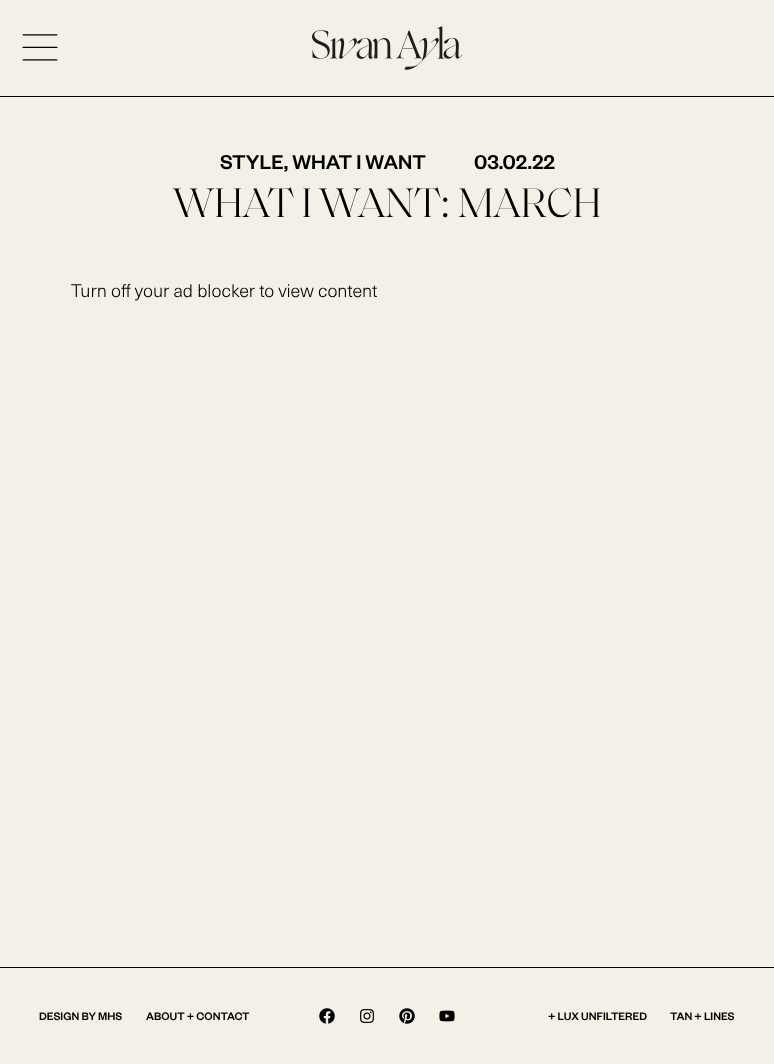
<!DOCTYPE html>
<meta charset="utf-8">
<style>body { margin: 0 } canvas { display: block }</style>
<canvas id="canvas" width="774" height="1064"></canvas>
<script type="module">
  const canvas = document.getElementById("canvas");
  const ctx = canvas.getContext("2d");
  ctx.miterLimit = 4;
  ctx.fontKerning = "normal";
  async function loadImage(src) {
    const img = new Image();
    img.src = src;
    await img.decode();
    return img;
  }

  ctx.fillStyle = "#f3f0e7";
  ctx.fillRect(0, 0, 774, 1064);
  ctx.fillStyle = "#000000";
  ctx.fillRect(0, 96, 774, 1);
  ctx.drawImage(await loadImage("img1.png"), 22, 34, 36, 27);
  ctx.drawImage(await loadImage("img2.png"), 312, 26, 150, 44);
  ctx.font = "500 22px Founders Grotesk";
  ctx.fillText("STYLE, WHAT I WANT", 220, 169);
  ctx.fillText("03.02.22", 474, 169);
  ctx.font = "300 42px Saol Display";
  ctx.fillText("WHAT I WANT: MARCH", 173, 217);
  ctx.font = "300 18px 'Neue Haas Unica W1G'";
  ctx.fillText("Turn off your ad blocker to view content", 71, 297);
  ctx.fillRect(0, 967, 774, 1);
  ctx.font = "500 12px Founders Grotesk";
  ctx.fillText("DESIGN BY MHS", 39, 1020);
  ctx.fillText("ABOUT + CONTACT", 146, 1020);
  ctx.drawImage(await loadImage("img3.png"), 319, 1008, 16, 16);
  ctx.drawImage(await loadImage("img4.png"), 360, 1009, 14, 14);
  ctx.drawImage(await loadImage("img5.png"), 399, 1008, 16, 16);
  ctx.drawImage(await loadImage("img6.png"), 439, 1010, 16, 12);
  ctx.fillText("+ LUX UNFILTERED", 548, 1020);
  ctx.fillText("TAN + LINES", 670, 1020);
</script>
